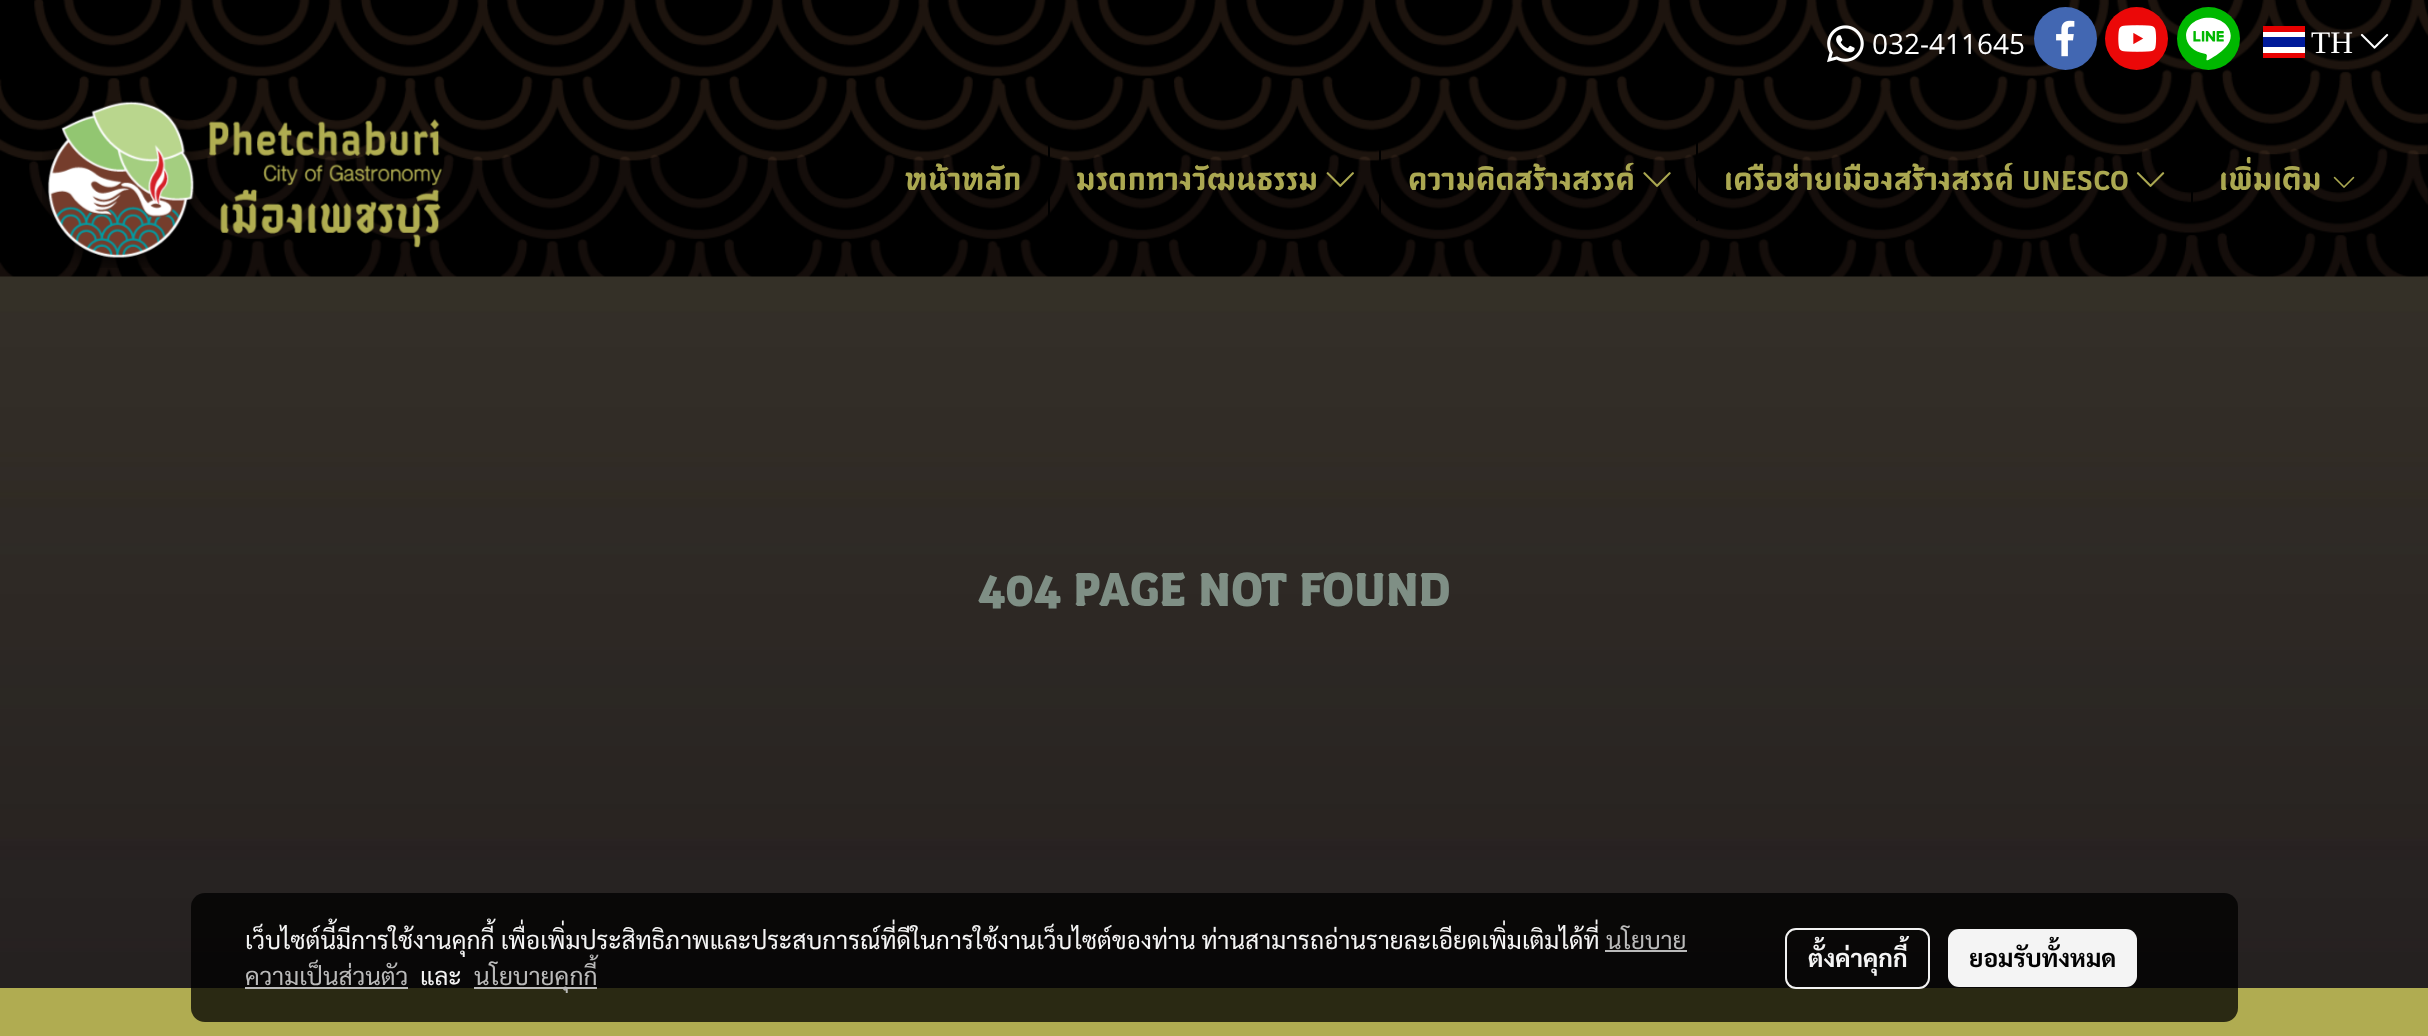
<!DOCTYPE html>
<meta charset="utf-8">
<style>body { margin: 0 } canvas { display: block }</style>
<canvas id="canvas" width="2428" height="1036"></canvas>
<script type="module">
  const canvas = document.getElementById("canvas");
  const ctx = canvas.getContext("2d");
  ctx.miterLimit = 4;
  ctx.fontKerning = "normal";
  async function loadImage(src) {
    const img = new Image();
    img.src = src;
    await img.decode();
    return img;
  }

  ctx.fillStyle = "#ffffff";
  ctx.fillRect(0, 0, 2428, 1036);
  ctx.drawImage(await loadImage("img1.png"), 0, 276, 2428, 712);
  ctx.drawImage(await loadImage("img2.png"), 0, 0, 2428, 277);
  ctx.drawImage(await loadImage("img3.png"), 1827, 25, 37, 38);
  ctx.font = "28px Open Sans";
  ctx.fillText("032-411645", 1872, 54);
  ctx.fillStyle = "#4267b2";
  ctx.beginPath();
  ctx.arc(2065.5, 38.5, 31.5, 0, Math.PI * 2);
  ctx.fill();
  ctx.drawImage(await loadImage("img4.png"), 2056, 20, 19, 37);
  ctx.fillStyle = "#eb0808";
  ctx.beginPath();
  ctx.arc(2136.5, 38.5, 31.5, 0, Math.PI * 2);
  ctx.fill();
  ctx.drawImage(await loadImage("img5.png"), 2118, 25, 39, 27);
  ctx.fillStyle = "#00b800";
  ctx.beginPath();
  ctx.arc(2208.5, 38.5, 31.5, 0, Math.PI * 2);
  ctx.fill();
  ctx.drawImage(await loadImage("img6.png"), 2186, 17, 45, 44);
  ctx.fillStyle = "#ffffff";
  ctx.fillRect(2263, 32, 42, 21);
  ctx.fillStyle = "#001b9a";
  ctx.fillRect(2263, 37, 42, 10);
  ctx.fillStyle = "#e70000";
  ctx.fillRect(2263, 26, 42, 6);
  ctx.fillRect(2263, 53, 42, 5);
  ctx.font = "31.5px Liberation Serif";
  ctx.fillStyle = "#ffffff";
  ctx.fillText("TH", 2311, 53);
  ctx.drawImage(await loadImage("img7.png"), 2360, 33, 29, 16);
  ctx.drawImage(await loadImage("img8.png"), 42, 101, 401, 167);
  ctx.fillStyle = "#000000";
  ctx.fillRect(1048, 142, 2, 79);
  ctx.font = "31.5px 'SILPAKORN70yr'";
  ctx.fillStyle = "#aba851";
  ctx.fillText("หน้าหลัก", 905, 190);
  ctx.fillStyle = "#000000";
  ctx.fillRect(1379, 142, 2, 79);
  ctx.fillStyle = "#aba851";
  ctx.fillText("มรดกทางวัฒนธรรม", 1076, 190);
  ctx.drawImage(await loadImage("img9.png"), 1326, 172, 28, 15);
  ctx.fillStyle = "#000000";
  ctx.fillRect(1696, 142, 2, 79);
  ctx.fillStyle = "#aba851";
  ctx.fillText("ความคิดสร้างสรรค์", 1408, 190);
  ctx.drawImage(await loadImage("img10.png"), 1643, 172, 28, 15);
  ctx.fillStyle = "#000000";
  ctx.fillRect(2191, 192, 2, 11);
  ctx.fillStyle = "#aba851";
  ctx.fillText("เครือข่ายเมืองสร้างสรรค์ UNESCO", 1724, 190);
  ctx.drawImage(await loadImage("img11.png"), 2136, 172, 29, 15);
  ctx.fillText("เพิ่มเติม", 2219, 190);
  ctx.drawImage(await loadImage("img12.png"), 2333, 176, 22, 12);
  ctx.font = "bold 52.5px 'SILPAKORN70yr'";
  ctx.fillStyle = "#7f8f85";
  ctx.fillText("404 PAGE NOT FOUND", 978, 606);
  ctx.fillStyle = "#b0ac51";
  ctx.fillRect(0, 988, 2428, 48);
  ctx.fillStyle = "rgba(0, 0, 0, 0.76)";
  ctx.beginPath();
  ctx.roundRect(191, 893, 2047, 129, 14);
  ctx.fill();
  ctx.font = "24.5px Sarabun";
  ctx.fillStyle = "#f4f4f4";
  ctx.fillText("เว็บไซต์นี้มีการใช้งานคุกกี้ เพื่อเพิ่มประสิทธิภาพและประสบการณ์ที่ดีในการใช้งานเว็บไซต์ของท่าน ท่านสามารถอ่านรายละเอียดเพิ่มเติมได้ที่", 245, 949);
  ctx.fillStyle = "#bababa";
  ctx.fillText("นโยบาย", 1606, 949);
  ctx.fillRect(1605, 950, 82, 2);
  ctx.fillText("ความเป็นส่วนตัว", 245, 985);
  ctx.fillStyle = "rgba(194, 194, 194, 0.95)";
  ctx.fillRect(245, 987, 163, 2);
  ctx.fillStyle = "#f4f4f4";
  ctx.fillText("และ", 420, 985);
  ctx.fillStyle = "rgba(194, 194, 194, 0.95)";
  ctx.fillRect(474, 987, 123, 2);
  ctx.fillStyle = "#bababa";
  ctx.fillText("นโยบายคุกกี้", 474, 985);
  ctx.beginPath();
  ctx.roundRect(1786, 929, 143, 59, 10);
  ctx.strokeStyle = "rgba(255, 255, 255, 0.95)";
  ctx.lineWidth = 2;
  ctx.stroke();
  ctx.font = "bold 24.5px Sarabun";
  ctx.fillStyle = "#f4f4f4";
  ctx.fillText("ตั้งค่าคุกกี้", 1808, 967);
  ctx.beginPath();
  ctx.roundRect(1948, 929, 189, 58, 11);
  ctx.fill();
  ctx.fillStyle = "#020202";
  ctx.fillText("ยอมรับทั้งหมด", 1969, 967);
</script>
